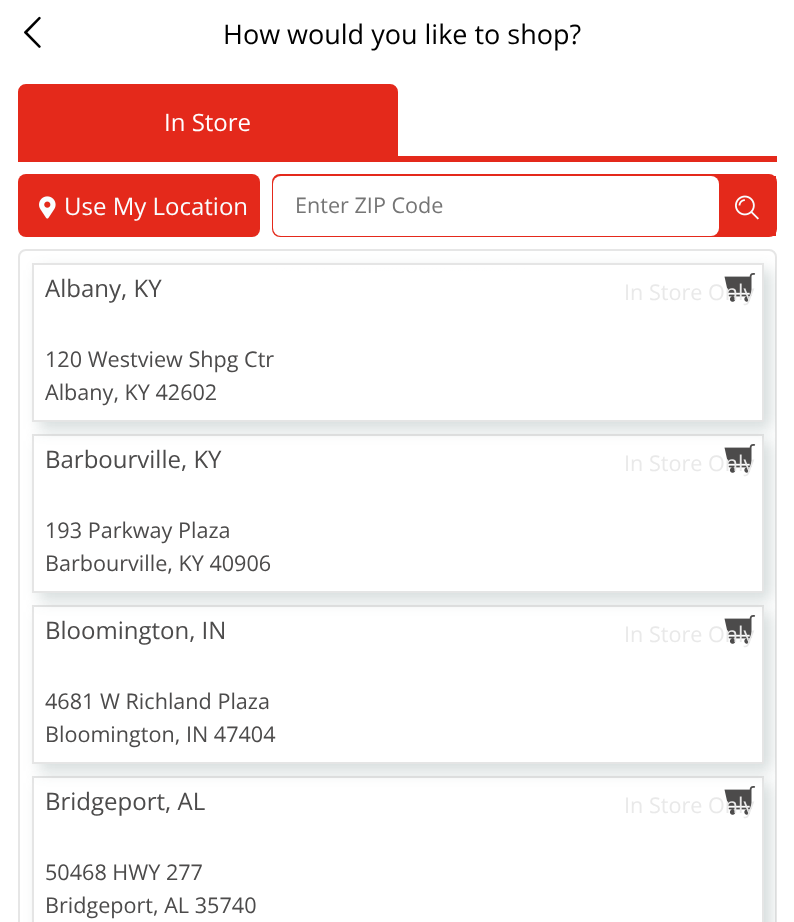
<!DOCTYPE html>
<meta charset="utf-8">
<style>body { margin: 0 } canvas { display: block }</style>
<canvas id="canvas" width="794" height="922"></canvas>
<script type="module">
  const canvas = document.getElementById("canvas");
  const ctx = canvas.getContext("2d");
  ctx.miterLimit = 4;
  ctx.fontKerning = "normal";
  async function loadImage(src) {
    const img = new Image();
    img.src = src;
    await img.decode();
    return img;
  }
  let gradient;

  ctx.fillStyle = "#ffffff";
  ctx.fillRect(0, 0, 794, 922);
  ctx.drawImage(await loadImage("img1.png"), 24, 16, 17, 32);
  ctx.font = "27px Open Sans";
  ctx.fillStyle = "#000000";
  ctx.fillText("How would you like to shop?", 223, 44);
  ctx.fillStyle = "#e4291b";
  ctx.fillRect(18, 156, 759, 6);
  ctx.beginPath();
  ctx.roundRect(19, 85, 378, 70, [7, 7, 0, 0]);
  ctx.fill();
  ctx.strokeStyle = "#e4291b";
  ctx.lineWidth = 2;
  ctx.stroke();
  ctx.font = "24px Open Sans";
  ctx.fillStyle = "#ffffff";
  ctx.fillText("In Store", 164, 131);
  ctx.fillStyle = "#e4291b";
  ctx.beginPath();
  ctx.roundRect(18, 174, 242, 63, 8);
  ctx.fill();
  ctx.drawImage(await loadImage("img2.png"), 39, 196, 17, 23);
  ctx.fillStyle = "#f9fdff";
  ctx.fillText("Use My Location", 64, 215);
  ctx.fillStyle = "#e4291b";
  ctx.beginPath();
  ctx.roundRect(273, 175, 503, 61, 7);
  ctx.fill();
  ctx.stroke();
  ctx.fillStyle = "#ffffff";
  ctx.beginPath();
  ctx.roundRect(273, 176, 446, 60, 8);
  ctx.fill();
  ctx.font = "21.6px Open Sans";
  ctx.fillStyle = "#757575";
  ctx.fillText("Enter ZIP Code", 295, 213);
  ctx.fillStyle = "#e4291b";
  ctx.fillRect(773, 176, 3, 60);
  ctx.drawImage(await loadImage("img3.png"), 735, 195, 24, 25);
  ctx.save();
  ctx.beginPath();
  ctx.roundRect(18, 249, 759, 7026, 8);
  ctx.clip();
  gradient = ctx.createRadialGradient(398, 4518, 0, 398, 4518, 378);
  gradient.addColorStop(0, "#cccccc");
  gradient.addColorStop(1, "#ffffff");
  ctx.fillStyle = gradient;
  ctx.beginPath();
  ctx.rect(20, 251, 756, 21);
  ctx.save();
  ctx.clip();
  ctx.scale(1, 21 / 378);
  ctx.fillRect(0, 0, 794, 16596);
  ctx.restore();
  gradient = ctx.createLinearGradient(398, 250, 398, 311);
  gradient.addColorStop(0.3, "#ffffff");
  gradient.addColorStop(1, "rgba(255, 255, 255, 0)");
  ctx.fillStyle = gradient;
  ctx.fillRect(20, 251, 756, 59);
  ctx.restore();
  ctx.beginPath();
  ctx.roundRect(19, 250, 757, 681, 7);
  ctx.strokeStyle = "#e6e6e6";
  ctx.stroke();
  ctx.save();
  ctx.beginPath();
  ctx.roundRect(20, 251, 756, 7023, 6);
  ctx.clip();
  ctx.beginPath();
  ctx.moveTo(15, 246);
  ctx.lineTo(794, 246);
  ctx.lineTo(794, 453);
  ctx.lineTo(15, 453);
  ctx.closePath();
  ctx.moveTo(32, 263);
  ctx.lineTo(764, 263);
  ctx.lineTo(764, 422);
  ctx.lineTo(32, 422);
  ctx.closePath();
  ctx.clip("evenodd");
  ctx.fillStyle = "rgba(47, 79, 79, 0.2)";
  ctx.filter = "blur(7.5px)";
  ctx.beginPath();
  ctx.rect(39, 270, 732, 159);
  ctx.fill();
  ctx.filter = "none";
  ctx.restore();
  ctx.strokeStyle = "rgba(0, 0, 0, 0.1)";
  ctx.strokeRect(33, 264, 730, 157);
  ctx.font = "24px Open Sans";
  ctx.fillStyle = "#4c4b4b";
  ctx.fillText("Albany, KY", 45, 297);
  ctx.drawImage(await loadImage("img4.png"), 724, 273, 32, 29);
  ctx.font = "21.6px Open Sans";
  ctx.fillStyle = "#e9e9e9";
  ctx.fillText("In Store Only", 624, 300);
  ctx.fillStyle = "#4c4b4b";
  ctx.fillText("120 Westview Shpg Ctr", 45, 367);
  ctx.fillText("Albany, KY 42602", 45, 400);
  ctx.save();
  ctx.beginPath();
  ctx.roundRect(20, 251, 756, 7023, 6);
  ctx.clip();
  ctx.beginPath();
  ctx.moveTo(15, 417);
  ctx.lineTo(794, 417);
  ctx.lineTo(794, 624);
  ctx.lineTo(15, 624);
  ctx.closePath();
  ctx.moveTo(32, 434);
  ctx.lineTo(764, 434);
  ctx.lineTo(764, 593);
  ctx.lineTo(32, 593);
  ctx.closePath();
  ctx.clip("evenodd");
  ctx.fillStyle = "rgba(47, 79, 79, 0.2)";
  ctx.filter = "blur(7.5px)";
  ctx.beginPath();
  ctx.rect(39, 441, 732, 159);
  ctx.fill();
  ctx.filter = "none";
  ctx.restore();
  ctx.strokeRect(33, 435, 730, 157);
  ctx.font = "24px Open Sans";
  ctx.fillText("Barbourville, KY", 45, 468);
  ctx.drawImage(await loadImage("img5.png"), 724, 444, 32, 29);
  ctx.font = "21.6px Open Sans";
  ctx.fillStyle = "#e9e9e9";
  ctx.fillText("In Store Only", 624, 471);
  ctx.fillStyle = "#4c4b4b";
  ctx.fillText("193 Parkway Plaza", 45, 538);
  ctx.fillText("Barbourville, KY 40906", 45, 571);
  ctx.save();
  ctx.beginPath();
  ctx.roundRect(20, 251, 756, 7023, 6);
  ctx.clip();
  ctx.beginPath();
  ctx.moveTo(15, 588);
  ctx.lineTo(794, 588);
  ctx.lineTo(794, 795);
  ctx.lineTo(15, 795);
  ctx.closePath();
  ctx.moveTo(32, 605);
  ctx.lineTo(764, 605);
  ctx.lineTo(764, 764);
  ctx.lineTo(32, 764);
  ctx.closePath();
  ctx.clip("evenodd");
  ctx.fillStyle = "rgba(47, 79, 79, 0.2)";
  ctx.filter = "blur(7.5px)";
  ctx.beginPath();
  ctx.rect(39, 612, 732, 159);
  ctx.fill();
  ctx.filter = "none";
  ctx.restore();
  ctx.strokeRect(33, 606, 730, 157);
  ctx.font = "24px Open Sans";
  ctx.fillText("Bloomington, IN", 45, 639);
  ctx.drawImage(await loadImage("img5.png"), 724, 615, 32, 29);
  ctx.font = "21.6px Open Sans";
  ctx.fillStyle = "#e9e9e9";
  ctx.fillText("In Store Only", 624, 642);
  ctx.fillStyle = "#4c4b4b";
  ctx.fillText("4681 W Richland Plaza", 45, 709);
  ctx.fillText("Bloomington, IN 47404", 45, 742);
  ctx.save();
  ctx.beginPath();
  ctx.roundRect(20, 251, 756, 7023, 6);
  ctx.clip();
  ctx.beginPath();
  ctx.moveTo(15, 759);
  ctx.lineTo(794, 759);
  ctx.lineTo(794, 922);
  ctx.lineTo(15, 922);
  ctx.closePath();
  ctx.moveTo(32, 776);
  ctx.lineTo(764, 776);
  ctx.lineTo(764, 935);
  ctx.lineTo(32, 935);
  ctx.closePath();
  ctx.clip("evenodd");
  ctx.fillStyle = "rgba(47, 79, 79, 0.2)";
  ctx.filter = "blur(7.5px)";
  ctx.beginPath();
  ctx.rect(39, 783, 732, 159);
  ctx.fill();
  ctx.filter = "none";
  ctx.restore();
  ctx.strokeRect(33, 777, 730, 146);
  ctx.font = "24px Open Sans";
  ctx.fillText("Bridgeport, AL", 45, 810);
  ctx.drawImage(await loadImage("img5.png"), 724, 786, 32, 29);
  ctx.font = "21.6px Open Sans";
  ctx.fillStyle = "#e9e9e9";
  ctx.fillText("In Store Only", 624, 813);
  ctx.fillStyle = "#4c4b4b";
  ctx.fillText("50468 HWY 277", 45, 880);
  ctx.fillText("Bridgeport, AL 35740", 45, 913);
</script>
